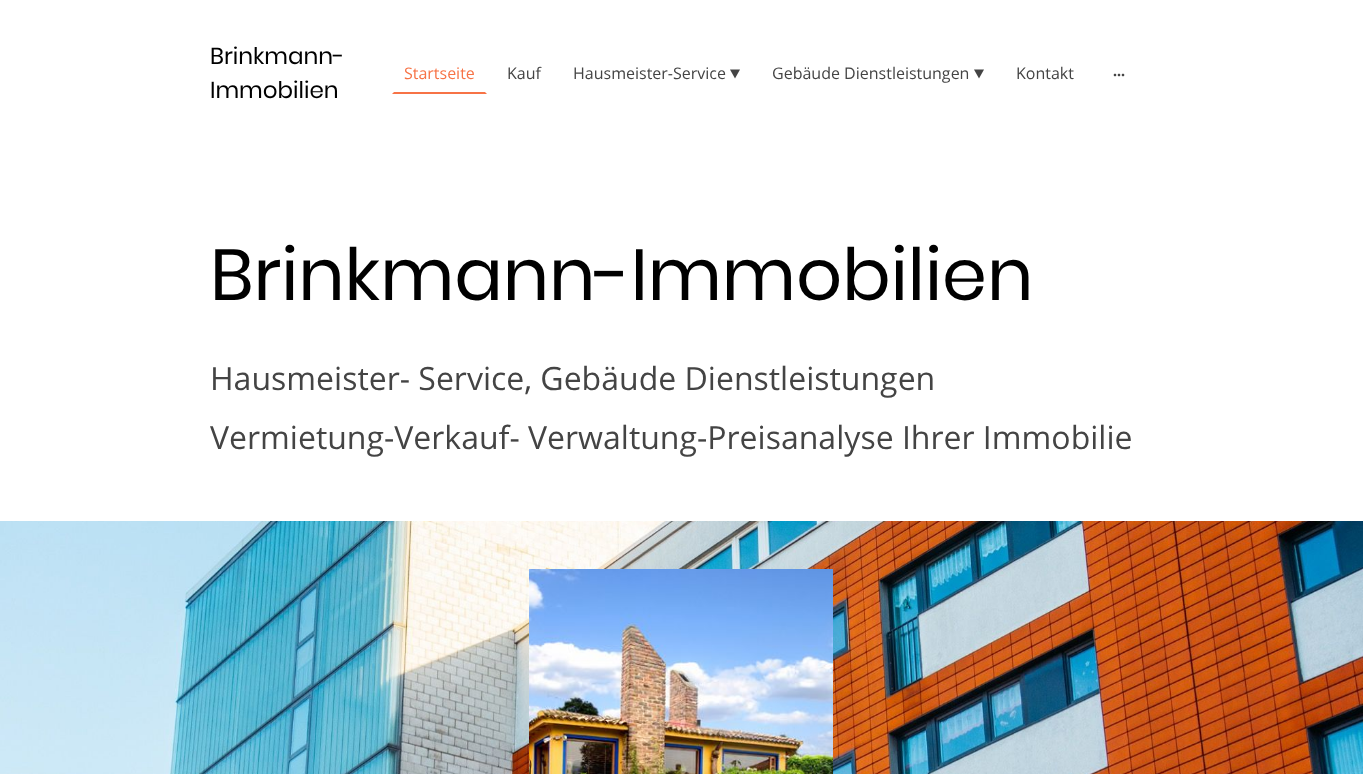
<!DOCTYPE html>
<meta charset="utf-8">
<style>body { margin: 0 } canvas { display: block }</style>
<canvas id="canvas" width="1363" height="774"></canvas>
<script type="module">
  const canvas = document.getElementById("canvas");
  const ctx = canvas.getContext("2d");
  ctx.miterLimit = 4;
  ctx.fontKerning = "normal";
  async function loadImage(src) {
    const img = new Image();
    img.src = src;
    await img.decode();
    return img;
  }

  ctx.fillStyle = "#ffffff";
  ctx.fillRect(0, 0, 1363, 774);
  ctx.font = "23px Poppins";
  ctx.fillStyle = "#000000";
  ctx.fillText("Brinkmann-", 210, 64);
  ctx.fillText("Immobilien", 210, 98);
  ctx.fillStyle = "#f77346";
  ctx.beginPath();
  ctx.moveTo(487, 94);
  ctx.lineTo(392, 94);
  ctx.lineTo(394, 92);
  ctx.lineTo(485, 92);
  ctx.closePath();
  ctx.fill();
  ctx.font = "16px Open Sans";
  ctx.fillText("Startseite", 404, 79);
  ctx.fillStyle = "#444444";
  ctx.fillText("Kauf", 507, 79);
  ctx.fillText("Hausmeister-Service", 573, 79);
  ctx.beginPath();
  ctx.moveTo(740, 69.5);
  ctx.lineTo(735, 78.5);
  ctx.lineTo(730, 69.5);
  ctx.closePath();
  ctx.fill();
  ctx.fillText("Gebäude Dienstleistungen", 772, 79);
  ctx.beginPath();
  ctx.moveTo(984, 69.5);
  ctx.lineTo(979, 78.5);
  ctx.lineTo(974, 69.5);
  ctx.closePath();
  ctx.fill();
  ctx.fillText("Kontakt", 1016, 79);
  ctx.drawImage(await loadImage("img1.png"), 1113, 73, 12, 4);
  ctx.font = "72px Poppins";
  ctx.fillStyle = "#000000";
  ctx.fillText("Brinkmann-Immobilien", 210, 300);
  ctx.font = "32px Open Sans";
  ctx.fillStyle = "#444444";
  ctx.fillText("Hausmeister- Service, Gebäude Dienstleistungen", 210, 390);
  ctx.fillText("Vermietung-Verkauf- Verwaltung-Preisanalyse Ihrer Immobilie", 210, 449);
  ctx.drawImage(await loadImage("img2.png"), 0, 521, 1363, 253);
  ctx.drawImage(await loadImage("img3.png"), 529, 569, 304, 205);
</script>
